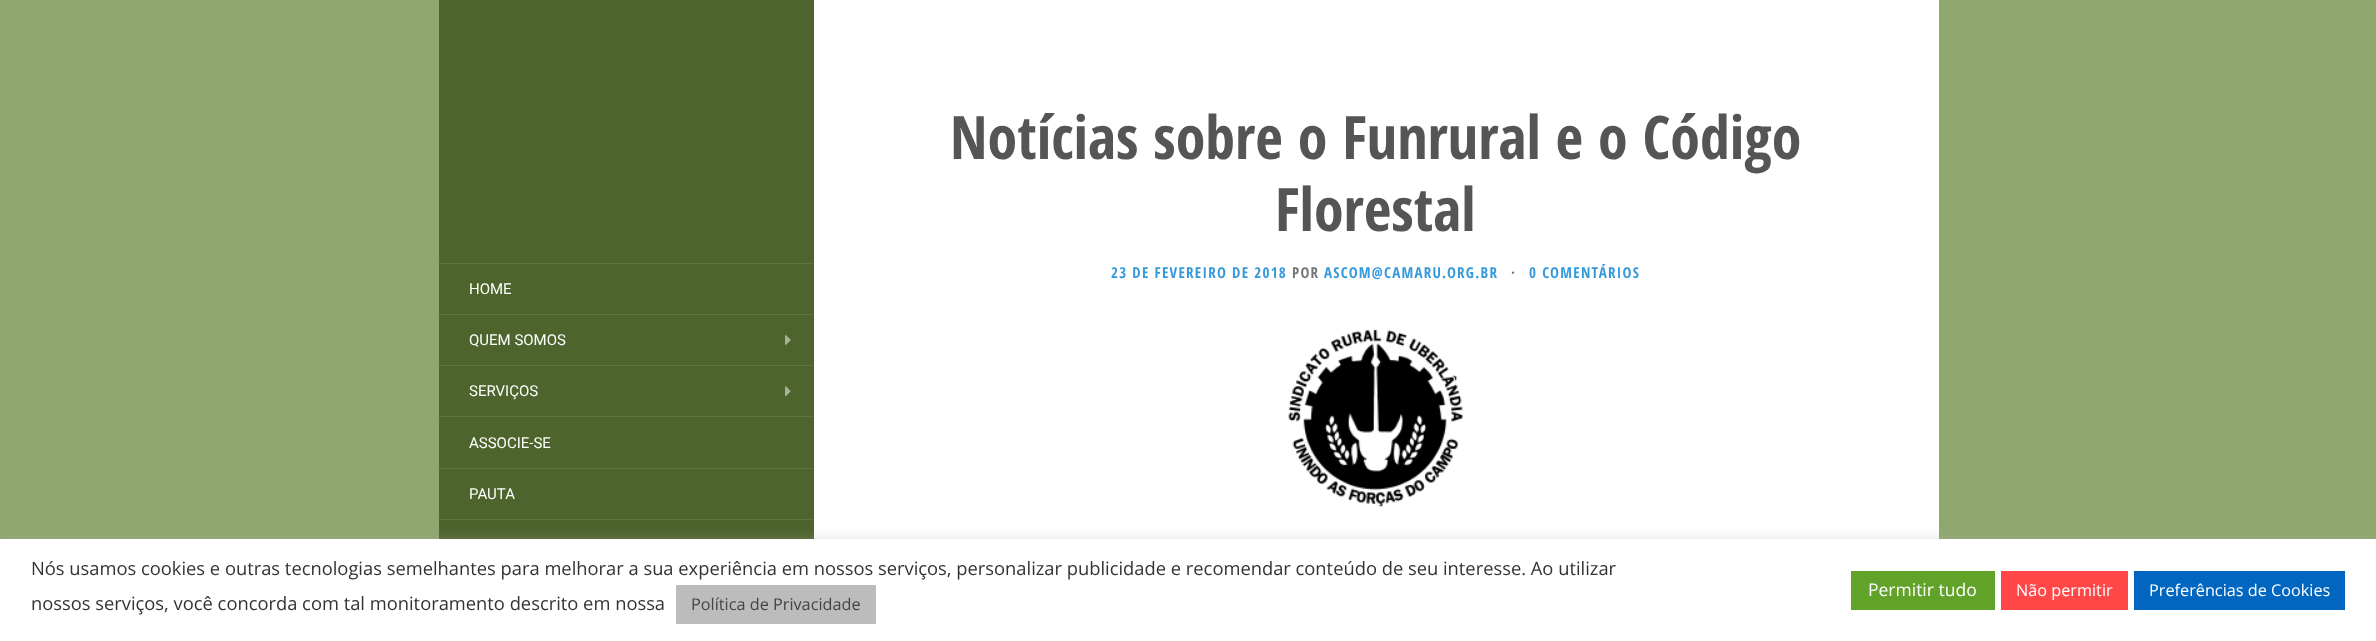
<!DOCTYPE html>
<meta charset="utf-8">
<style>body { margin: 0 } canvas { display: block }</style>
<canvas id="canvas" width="2376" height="641"></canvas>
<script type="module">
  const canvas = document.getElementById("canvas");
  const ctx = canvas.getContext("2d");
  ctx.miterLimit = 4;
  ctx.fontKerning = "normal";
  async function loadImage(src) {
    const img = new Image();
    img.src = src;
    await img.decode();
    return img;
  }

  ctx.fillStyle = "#8fa86e";
  ctx.fillRect(0, 0, 2376, 641);
  ctx.fillStyle = "#ffffff";
  ctx.fillRect(814, 0, 1125, 539);
  ctx.fillStyle = "#4d642c";
  ctx.fillRect(439, 0, 375, 539);
  ctx.font = "bold 60px Open Sans Condensed";
  ctx.fillStyle = "#555555";
  ctx.fillText("Notícias sobre o Funrural e o Código", 950, 159);
  ctx.fillText("Florestal", 1275, 231);
  ctx.letterSpacing = "1.25px";
  ctx.font = "bold 15px Open Sans Condensed";
  ctx.fillStyle = "#3699dc";
  ctx.fillText("23 DE FEVEREIRO DE 2018", 1111, 278);
  ctx.fillStyle = "#777777";
  ctx.fillText("POR", 1292, 278);
  ctx.fillStyle = "#3699dc";
  ctx.fillText("ASCOM@CAMARU.ORG.BR", 1324, 278);
  ctx.fillStyle = "#777777";
  ctx.fillText("·", 1511, 278);
  ctx.fillStyle = "#3699dc";
  ctx.fillText("0 COMENTÁRIOS", 1529, 278);
  ctx.drawImage(await loadImage("img1.png"), 1288, 329, 175, 178);
  ctx.fillStyle = "#5f7441";
  ctx.fillRect(439, 263, 375, 1);
  ctx.fillRect(439, 314, 375, 1);
  ctx.letterSpacing = "0px";
  ctx.font = "15px Roboto";
  ctx.fillStyle = "#ffffff";
  ctx.fillText("HOME", 469, 294);
  ctx.fillStyle = "#5f7441";
  ctx.fillRect(439, 365, 375, 1);
  ctx.fillStyle = "#ffffff";
  ctx.fillText("QUEM SOMOS", 469, 345);
  ctx.drawImage(await loadImage("img2.png"), 785, 335, 6, 10);
  ctx.fillStyle = "#5f7441";
  ctx.fillRect(439, 416, 375, 1);
  ctx.fillStyle = "#ffffff";
  ctx.fillText("SERVIÇOS", 469, 396);
  ctx.drawImage(await loadImage("img3.png"), 785, 386, 6, 11);
  ctx.fillStyle = "#5f7441";
  ctx.fillRect(439, 468, 375, 1);
  ctx.fillStyle = "#ffffff";
  ctx.fillText("ASSOCIE-SE", 469, 448);
  ctx.fillStyle = "#5f7441";
  ctx.fillRect(439, 519, 375, 1);
  ctx.fillStyle = "#ffffff";
  ctx.fillText("PAUTA", 469, 499);
  ctx.fillStyle = "rgba(172, 171, 171, 0.3)";
  ctx.filter = "blur(6px)";
  ctx.beginPath();
  ctx.rect(0, 538, 2376, 102);
  ctx.fill();
  ctx.filter = "none";
  ctx.fillStyle = "#ffffff";
  ctx.fillRect(0, 539, 2376, 102);
  ctx.font = "18.33px Open Sans";
  ctx.fillStyle = "#333333";
  ctx.fillText("Nós usamos cookies e outras tecnologias semelhantes para melhorar a sua experiência em nossos serviços, personalizar publicidade e recomendar conteúdo de seu interesse. Ao utilizar", 31, 575);
  ctx.fillText("nossos serviços, você concorda com tal monitoramento descrito em nossa", 31, 610);
  ctx.fillStyle = "#bcbcbc";
  ctx.fillRect(676, 585, 200, 39);
  ctx.font = "16.25px Open Sans";
  ctx.fillStyle = "#444444";
  ctx.fillText("Política de Privacidade", 691, 610);
  ctx.fillStyle = "#61a229";
  ctx.fillRect(1851, 571, 144, 39);
  ctx.font = "17.5px Open Sans";
  ctx.fillStyle = "#ffffff";
  ctx.fillText("Permitir tudo", 1868, 596);
  ctx.fillStyle = "#ff4747";
  ctx.fillRect(2001, 571, 127, 39);
  ctx.font = "16.25px Open Sans";
  ctx.fillStyle = "#ffffff";
  ctx.fillText("Não permitir", 2016, 596);
  ctx.fillStyle = "#0066bf";
  ctx.fillRect(2134, 571, 211, 39);
  ctx.fillStyle = "#ffffff";
  ctx.fillText("Preferências de Cookies", 2149, 596);
</script>
